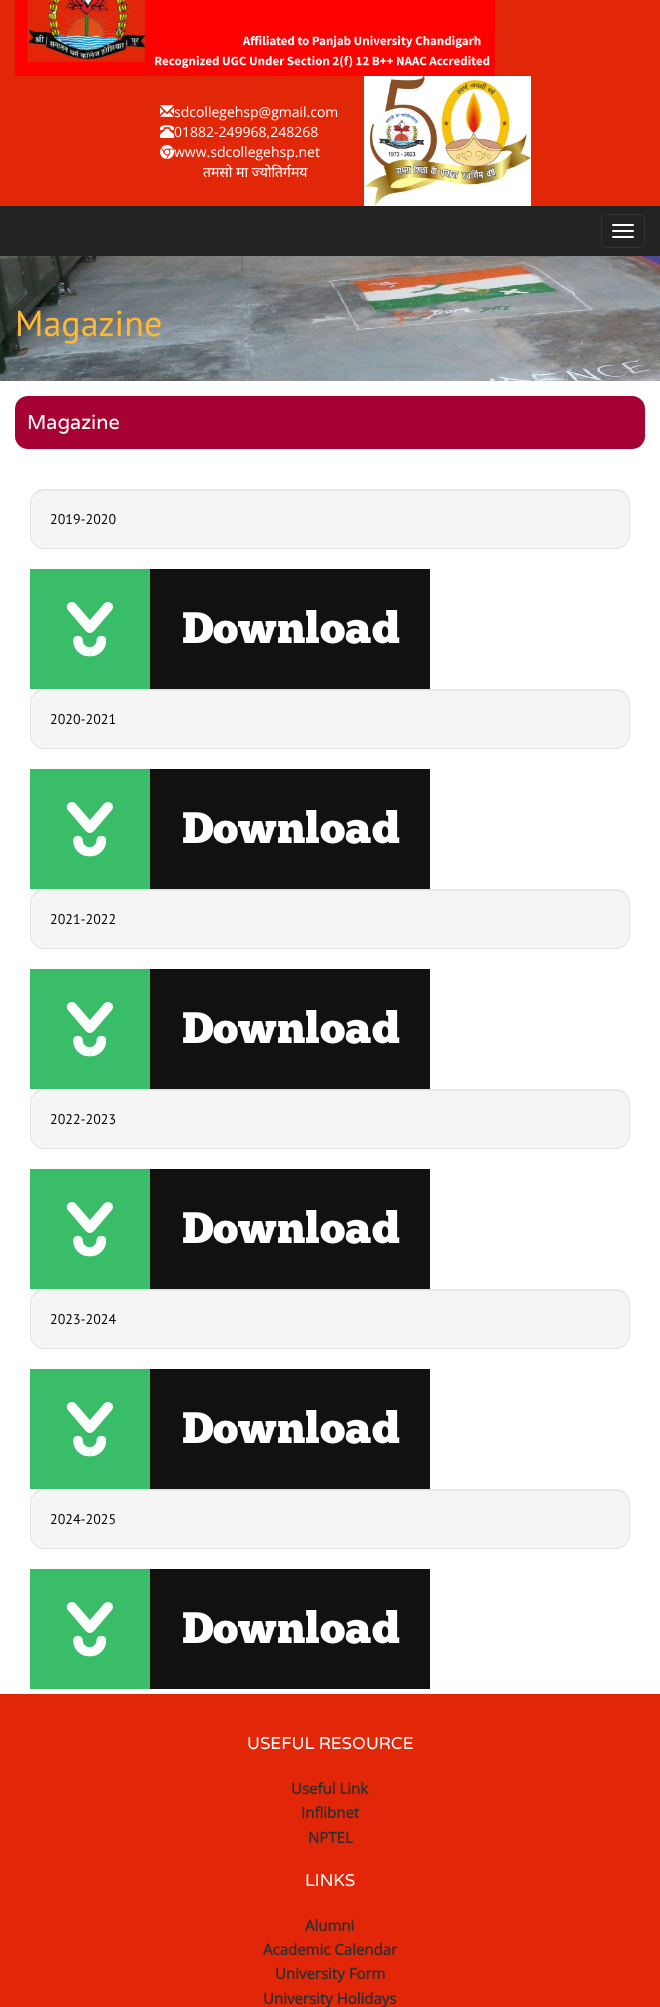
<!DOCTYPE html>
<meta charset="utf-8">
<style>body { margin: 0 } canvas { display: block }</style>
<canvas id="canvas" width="660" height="2007"></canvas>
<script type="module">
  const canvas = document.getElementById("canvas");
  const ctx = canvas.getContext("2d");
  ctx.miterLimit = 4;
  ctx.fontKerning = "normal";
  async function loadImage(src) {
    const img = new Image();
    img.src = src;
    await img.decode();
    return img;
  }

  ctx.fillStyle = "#ffffff";
  ctx.fillRect(0, 0, 660, 2007);
  ctx.fillStyle = "#e22608";
  ctx.fillRect(0, 0, 660, 206);
  ctx.drawImage(await loadImage("img1.png"), 15, 0, 480, 76);
  ctx.drawImage(await loadImage("img2.png"), 160, 105, 14, 12);
  ctx.font = "14px Open Sans";
  ctx.fillStyle = "#ffffff";
  ctx.fillText("sdcollegehsp@gmail.com", 174, 117);
  ctx.drawImage(await loadImage("img3.png"), 160, 125, 14, 13);
  ctx.fillText("01882-249968,248268", 174, 137);
  ctx.drawImage(await loadImage("img4.png"), 160, 145, 14, 14);
  ctx.fillText("www.sdcollegehsp.net", 174, 157);
  ctx.font = "14px Noto Sans";
  ctx.fillText("तमसो मा ज्योतिर्गमय", 203, 177);
  ctx.drawImage(await loadImage("img5.png"), 364, 76, 167, 130);
  ctx.fillStyle = "#222222";
  ctx.fillRect(0, 206, 660, 50);
  ctx.beginPath();
  ctx.roundRect(601.5, 214.5, 43, 33, 3.5);
  ctx.strokeStyle = "#333333";
  ctx.stroke();
  ctx.fillStyle = "#ffffff";
  ctx.beginPath();
  ctx.roundRect(612, 224, 22, 2, 1);
  ctx.fill();
  ctx.beginPath();
  ctx.roundRect(612, 230, 22, 2, 1);
  ctx.fill();
  ctx.beginPath();
  ctx.roundRect(612, 236, 22, 2, 1);
  ctx.fill();
  ctx.drawImage(await loadImage("img6.png"), 0, 256, 660, 125);
  ctx.font = "36px PT Sans";
  ctx.fillStyle = "#ffb935";
  ctx.fillText("Magazine", 15, 336);
  ctx.fillStyle = "#a50133";
  ctx.beginPath();
  ctx.roundRect(15, 396, 630, 53, 13);
  ctx.fill();
  ctx.font = "20px Varela";
  ctx.fillStyle = "#ffffff";
  ctx.fillText("Magazine", 27, 429);
  ctx.fillStyle = "#f5f5f5";
  ctx.beginPath();
  ctx.roundRect(30, 489, 600, 60, 14);
  ctx.fill();
  ctx.fillStyle = "#e9e9e9";
  ctx.beginPath();
  ctx.moveTo(44, 491);
  ctx.lineTo(616, 491);
  ctx.bezierCurveTo(623, 491, 629, 497, 629, 504);
  ctx.lineTo(629, 503);
  ctx.bezierCurveTo(629, 496, 623, 490, 616, 490);
  ctx.lineTo(44, 490);
  ctx.bezierCurveTo(37, 490, 31, 496, 31, 503);
  ctx.lineTo(31, 504);
  ctx.bezierCurveTo(31, 497, 37, 491, 44, 491);
  ctx.closePath();
  ctx.fill();
  ctx.beginPath();
  ctx.roundRect(30.5, 489.5, 599, 59, 13.5);
  ctx.strokeStyle = "#e3e3e3";
  ctx.stroke();
  ctx.font = "14px PT Sans";
  ctx.fillStyle = "#000000";
  ctx.fillText("2019-2020", 50, 524);
  ctx.drawImage(await loadImage("img7.png"), 30, 569, 400, 120);
  ctx.fillStyle = "#f5f5f5";
  ctx.beginPath();
  ctx.roundRect(30, 689, 600, 60, 14);
  ctx.fill();
  ctx.fillStyle = "#e9e9e9";
  ctx.beginPath();
  ctx.moveTo(44, 691);
  ctx.lineTo(616, 691);
  ctx.bezierCurveTo(623, 691, 629, 697, 629, 704);
  ctx.lineTo(629, 703);
  ctx.bezierCurveTo(629, 696, 623, 690, 616, 690);
  ctx.lineTo(44, 690);
  ctx.bezierCurveTo(37, 690, 31, 696, 31, 703);
  ctx.lineTo(31, 704);
  ctx.bezierCurveTo(31, 697, 37, 691, 44, 691);
  ctx.closePath();
  ctx.fill();
  ctx.beginPath();
  ctx.roundRect(30.5, 689.5, 599, 59, 13.5);
  ctx.stroke();
  ctx.fillStyle = "#000000";
  ctx.fillText("2020-2021", 50, 724);
  ctx.drawImage(await loadImage("img7.png"), 30, 769, 400, 120);
  ctx.fillStyle = "#f5f5f5";
  ctx.beginPath();
  ctx.roundRect(30, 889, 600, 60, 14);
  ctx.fill();
  ctx.fillStyle = "#e9e9e9";
  ctx.beginPath();
  ctx.moveTo(44, 891);
  ctx.lineTo(616, 891);
  ctx.bezierCurveTo(623, 891, 629, 897, 629, 904);
  ctx.lineTo(629, 903);
  ctx.bezierCurveTo(629, 896, 623, 890, 616, 890);
  ctx.lineTo(44, 890);
  ctx.bezierCurveTo(37, 890, 31, 896, 31, 903);
  ctx.lineTo(31, 904);
  ctx.bezierCurveTo(31, 897, 37, 891, 44, 891);
  ctx.closePath();
  ctx.fill();
  ctx.beginPath();
  ctx.roundRect(30.5, 889.5, 599, 59, 13.5);
  ctx.stroke();
  ctx.fillStyle = "#000000";
  ctx.fillText("2021-2022", 50, 924);
  ctx.drawImage(await loadImage("img7.png"), 30, 969, 400, 120);
  ctx.fillStyle = "#f5f5f5";
  ctx.beginPath();
  ctx.roundRect(30, 1089, 600, 60, 14);
  ctx.fill();
  ctx.fillStyle = "#e9e9e9";
  ctx.beginPath();
  ctx.moveTo(44, 1091);
  ctx.lineTo(616, 1091);
  ctx.bezierCurveTo(623, 1091, 629, 1097, 629, 1104);
  ctx.lineTo(629, 1103);
  ctx.bezierCurveTo(629, 1096, 623, 1090, 616, 1090);
  ctx.lineTo(44, 1090);
  ctx.bezierCurveTo(37, 1090, 31, 1096, 31, 1103);
  ctx.lineTo(31, 1104);
  ctx.bezierCurveTo(31, 1097, 37, 1091, 44, 1091);
  ctx.closePath();
  ctx.fill();
  ctx.beginPath();
  ctx.roundRect(30.5, 1089.5, 599, 59, 13.5);
  ctx.stroke();
  ctx.fillStyle = "#000000";
  ctx.fillText("2022-2023", 50, 1124);
  ctx.drawImage(await loadImage("img7.png"), 30, 1169, 400, 120);
  ctx.fillStyle = "#f5f5f5";
  ctx.beginPath();
  ctx.roundRect(30, 1289, 600, 60, 14);
  ctx.fill();
  ctx.fillStyle = "#e9e9e9";
  ctx.beginPath();
  ctx.moveTo(44, 1291);
  ctx.lineTo(616, 1291);
  ctx.bezierCurveTo(623, 1291, 629, 1297, 629, 1304);
  ctx.lineTo(629, 1303);
  ctx.bezierCurveTo(629, 1296, 623, 1290, 616, 1290);
  ctx.lineTo(44, 1290);
  ctx.bezierCurveTo(37, 1290, 31, 1296, 31, 1303);
  ctx.lineTo(31, 1304);
  ctx.bezierCurveTo(31, 1297, 37, 1291, 44, 1291);
  ctx.closePath();
  ctx.fill();
  ctx.beginPath();
  ctx.roundRect(30.5, 1289.5, 599, 59, 13.5);
  ctx.stroke();
  ctx.fillStyle = "#000000";
  ctx.fillText("2023-2024", 50, 1324);
  ctx.drawImage(await loadImage("img7.png"), 30, 1369, 400, 120);
  ctx.fillStyle = "#f5f5f5";
  ctx.beginPath();
  ctx.roundRect(30, 1489, 600, 60, 14);
  ctx.fill();
  ctx.fillStyle = "#e9e9e9";
  ctx.beginPath();
  ctx.moveTo(44, 1491);
  ctx.lineTo(616, 1491);
  ctx.bezierCurveTo(623, 1491, 629, 1497, 629, 1504);
  ctx.lineTo(629, 1503);
  ctx.bezierCurveTo(629, 1496, 623, 1490, 616, 1490);
  ctx.lineTo(44, 1490);
  ctx.bezierCurveTo(37, 1490, 31, 1496, 31, 1503);
  ctx.lineTo(31, 1504);
  ctx.bezierCurveTo(31, 1497, 37, 1491, 44, 1491);
  ctx.closePath();
  ctx.fill();
  ctx.beginPath();
  ctx.roundRect(30.5, 1489.5, 599, 59, 13.5);
  ctx.stroke();
  ctx.fillStyle = "#000000";
  ctx.fillText("2024-2025", 50, 1524);
  ctx.drawImage(await loadImage("img7.png"), 30, 1569, 400, 120);
  ctx.fillStyle = "#e22608";
  ctx.fillRect(0, 1694, 660, 313);
  ctx.font = "17px Varela";
  ctx.fillStyle = "#ffffff";
  ctx.fillText("USEFUL RESOURCE", 247, 1749);
  ctx.font = "bold 15px Open Sans";
  ctx.fillStyle = "#2f2f2f";
  ctx.fillText("Useful Link", 291, 1794);
  ctx.fillText("Inflibnet", 301, 1818);
  ctx.fillText("NPTEL", 308, 1843);
  ctx.font = "17px Varela";
  ctx.fillStyle = "#ffffff";
  ctx.fillText("LINKS", 305, 1886);
  ctx.font = "bold 15px Open Sans";
  ctx.fillStyle = "#2f2f2f";
  ctx.fillText("Alumni", 305, 1931);
  ctx.fillText("Academic Calendar", 263, 1955);
  ctx.fillText("University Form", 275, 1979);
  ctx.fillText("University Holidays", 263, 2004);
</script>
